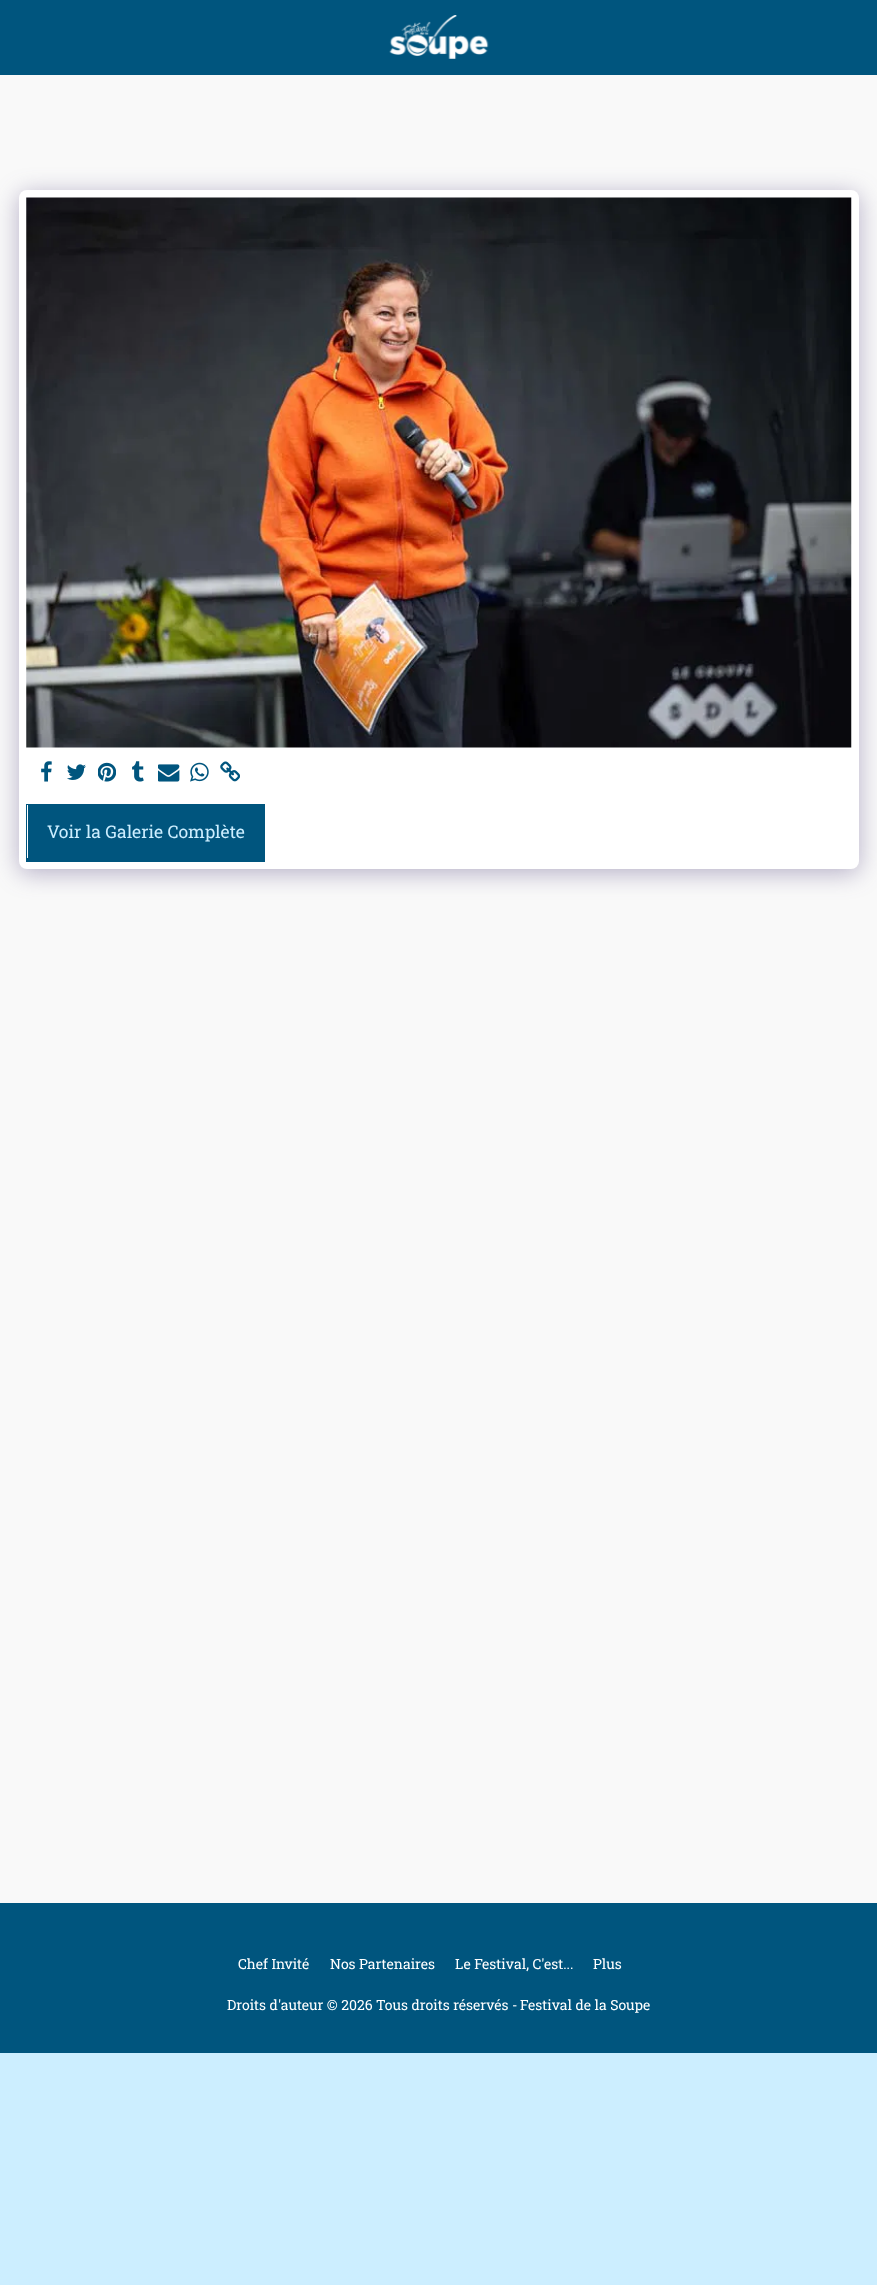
<!DOCTYPE html>
<meta charset="utf-8">
<style>body { margin: 0 } canvas { display: block }</style>
<canvas id="canvas" width="877" height="2285"></canvas>
<script type="module">
  const canvas = document.getElementById("canvas");
  const ctx = canvas.getContext("2d");
  ctx.miterLimit = 4;
  ctx.fontKerning = "normal";
  async function loadImage(src) {
    const img = new Image();
    img.src = src;
    await img.decode();
    return img;
  }

  ctx.fillStyle = "#cceeff";
  ctx.fillRect(0, 0, 877, 2285);
  ctx.fillStyle = "#00557e";
  ctx.fillRect(0, 0, 877, 75);
  ctx.drawImage(await loadImage("img1.png"), 389, 15, 100, 44);
  ctx.fillStyle = "#f9f9f9";
  ctx.fillRect(0, 75, 877, 1828);
  ctx.fillStyle = "rgba(77, 63, 122, 0.4)";
  ctx.filter = "blur(12.5px)";
  ctx.beginPath();
  ctx.roundRect(19, 194, 840, 679, 8);
  ctx.fill();
  ctx.filter = "none";
  ctx.fillStyle = "#ffffff";
  ctx.beginPath();
  ctx.roundRect(19, 190, 840, 679, 8);
  ctx.fill();
  ctx.drawImage(await loadImage("img2.png"), 26, 197, 826, 551);
  ctx.drawImage(await loadImage("img3.png"), 41, 761, 11, 21);
  ctx.drawImage(await loadImage("img4.png"), 67, 764, 19, 16);
  ctx.drawImage(await loadImage("img5.png"), 98, 762, 18, 20);
  ctx.drawImage(await loadImage("img6.png"), 132, 761, 12, 21);
  ctx.drawImage(await loadImage("img7.png"), 158, 764, 22, 18);
  ctx.drawImage(await loadImage("img8.png"), 190, 762, 19, 20);
  ctx.drawImage(await loadImage("img9.png"), 220, 761, 20, 21);
  ctx.fillStyle = "#00557e";
  ctx.fillRect(28, 805, 236, 53);
  ctx.fillRect(26, 804, 239, 1);
  ctx.fillRect(264, 804, 1, 57);
  ctx.fillRect(26, 858, 239, 4);
  ctx.fillRect(26, 804, 1, 57);
  ctx.font = "17.5px Roboto Slab";
  ctx.fillStyle = "#cceeff";
  ctx.fillText("Voir la Galerie Complète", 47, 838);
  ctx.fillStyle = "#00557e";
  ctx.fillRect(0, 1903, 877, 150);
  ctx.font = "14px Roboto Slab";
  ctx.fillStyle = "#ffffff";
  ctx.fillText("Chef Invité", 238, 1969);
  ctx.fillText("Nos Partenaires", 330, 1969);
  ctx.fillText("Le Festival, C'est...", 455, 1969);
  ctx.fillText("Plus", 593, 1969);
  ctx.fillText("Droits d'auteur © 2026 Tous droits réservés -", 227, 2010);
  ctx.fillText("Festival de la Soupe", 520, 2010);
</script>
